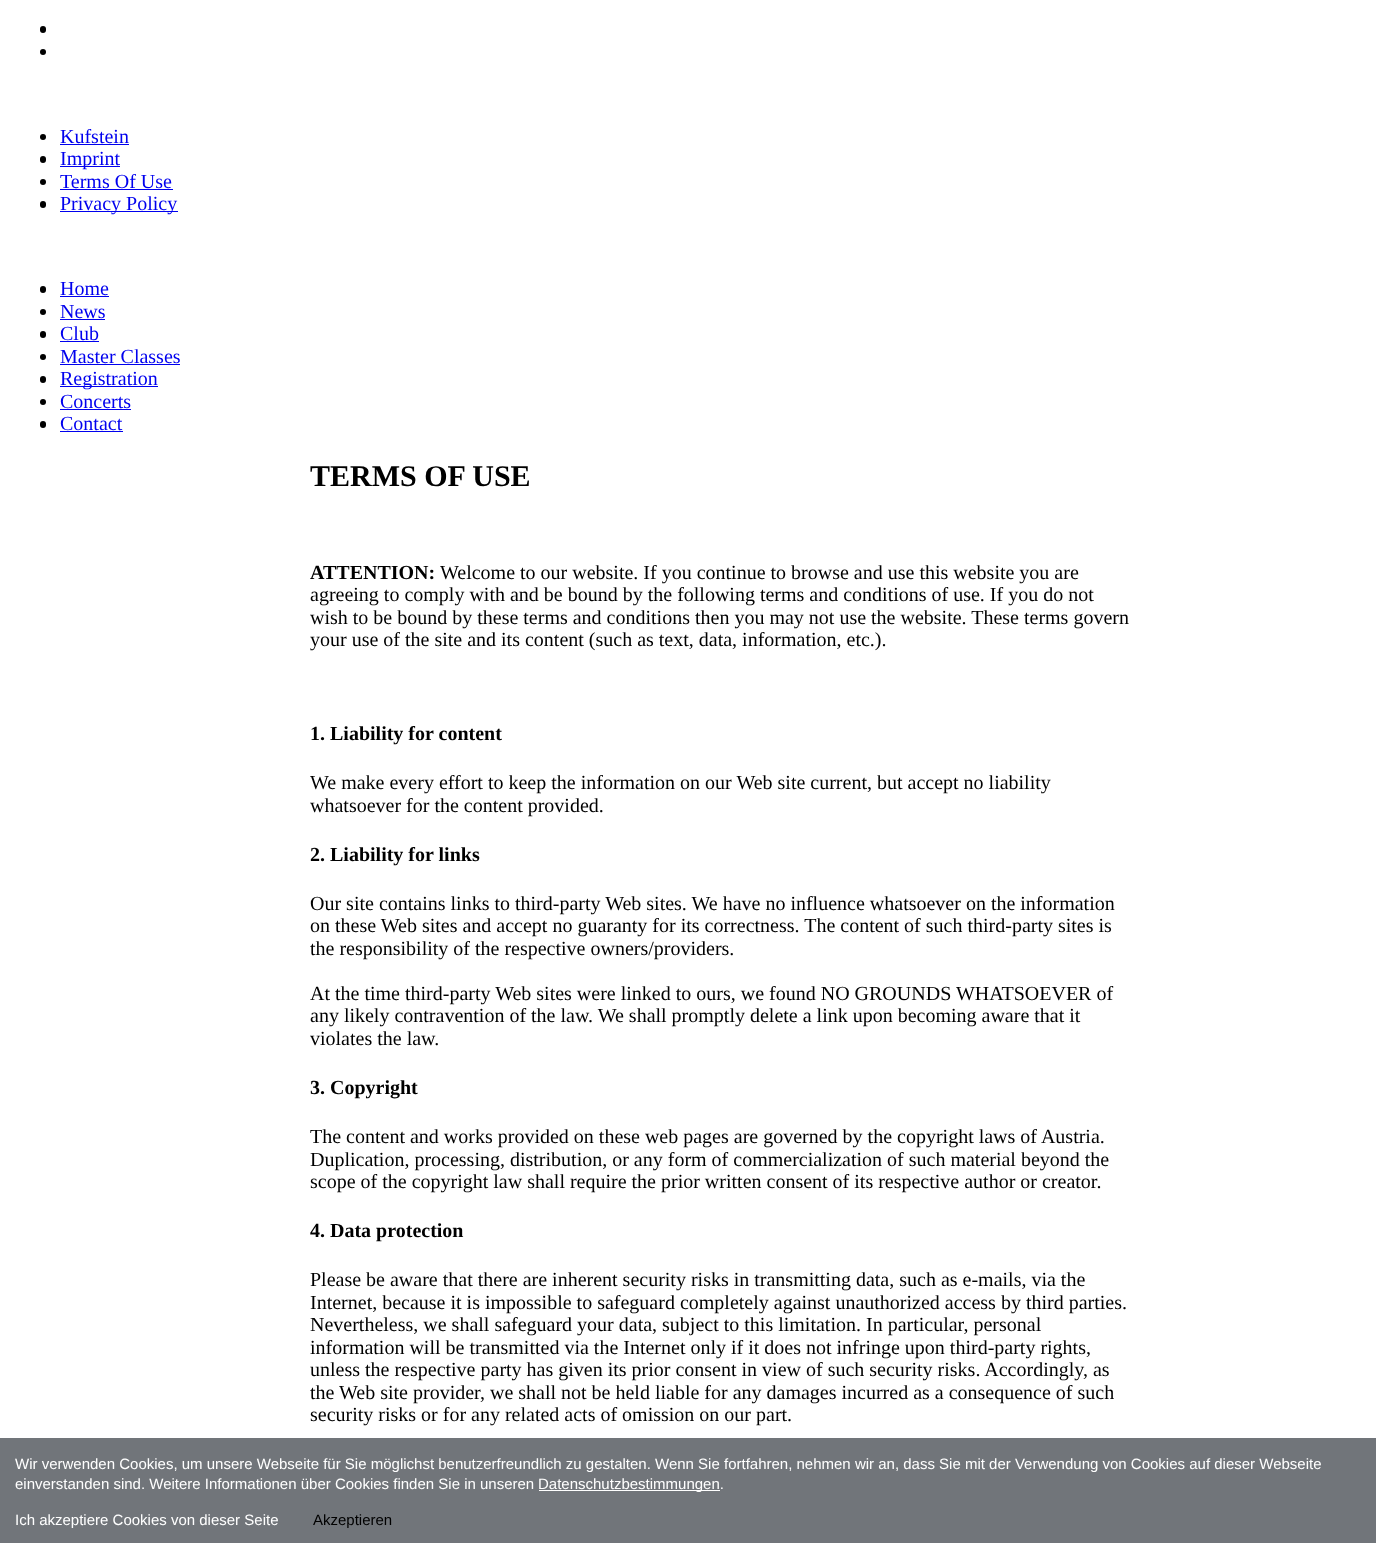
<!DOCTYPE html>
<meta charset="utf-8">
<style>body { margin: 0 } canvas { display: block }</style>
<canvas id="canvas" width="1376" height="1543"></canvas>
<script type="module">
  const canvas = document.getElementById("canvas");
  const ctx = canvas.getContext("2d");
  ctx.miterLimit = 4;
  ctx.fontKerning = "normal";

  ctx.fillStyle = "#ffffff";
  ctx.fillRect(0, 0, 1376, 1543);
  ctx.fillStyle = "#000000";
  ctx.beginPath();
  ctx.roundRect(40, 26, 6, 7, 3);
  ctx.fill();
  ctx.beginPath();
  ctx.arc(43, 52, 3, 0, Math.PI * 2);
  ctx.fill();
  ctx.beginPath();
  ctx.arc(43, 137, 3, 0, Math.PI * 2);
  ctx.fill();
  ctx.font = "20px Liberation Serif";
  ctx.fillStyle = "#0000ee";
  ctx.fillText("Kufstein", 60, 143);
  ctx.fillRect(60, 144, 69, 1);
  ctx.fillStyle = "#000000";
  ctx.beginPath();
  ctx.roundRect(40, 156, 6, 7, 3);
  ctx.fill();
  ctx.fillStyle = "#0000ee";
  ctx.fillRect(60, 166, 60, 1);
  ctx.fillText("Imprint", 60, 165);
  ctx.fillStyle = "#000000";
  ctx.beginPath();
  ctx.arc(43, 182, 3, 0, Math.PI * 2);
  ctx.fill();
  ctx.fillStyle = "#0000ee";
  ctx.fillText("Terms Of Use", 60, 188);
  ctx.fillRect(60, 189, 113, 1);
  ctx.fillStyle = "#000000";
  ctx.beginPath();
  ctx.roundRect(40, 201, 6, 7, 3);
  ctx.fill();
  ctx.fillStyle = "#0000ee";
  ctx.fillRect(60, 211, 118, 1);
  ctx.fillText("Privacy Policy", 60, 210);
  ctx.fillStyle = "#000000";
  ctx.beginPath();
  ctx.roundRect(40, 286, 6, 7, 3);
  ctx.fill();
  ctx.fillStyle = "#0000ee";
  ctx.fillText("Home", 60, 295);
  ctx.fillRect(60, 296, 49, 1);
  ctx.fillStyle = "#000000";
  ctx.beginPath();
  ctx.arc(43, 312, 3, 0, Math.PI * 2);
  ctx.fill();
  ctx.fillStyle = "#0000ee";
  ctx.fillText("News", 60, 318);
  ctx.fillRect(60, 319, 45, 1);
  ctx.fillStyle = "#000000";
  ctx.beginPath();
  ctx.roundRect(40, 331, 6, 7, 3);
  ctx.fill();
  ctx.fillStyle = "#0000ee";
  ctx.fillText("Club", 60, 340);
  ctx.fillRect(60, 341, 39, 1);
  ctx.fillStyle = "#000000";
  ctx.beginPath();
  ctx.arc(43, 357, 3, 0, Math.PI * 2);
  ctx.fill();
  ctx.fillStyle = "#0000ee";
  ctx.fillText("Master Classes", 60, 363);
  ctx.fillRect(60, 364, 120, 1);
  ctx.fillStyle = "#000000";
  ctx.beginPath();
  ctx.roundRect(40, 376, 6, 7, 3);
  ctx.fill();
  ctx.fillStyle = "#0000ee";
  ctx.fillRect(60, 386, 98, 1);
  ctx.fillText("Registration", 60, 385);
  ctx.fillStyle = "#000000";
  ctx.beginPath();
  ctx.arc(43, 402, 3, 0, Math.PI * 2);
  ctx.fill();
  ctx.fillStyle = "#0000ee";
  ctx.fillText("Concerts", 60, 408);
  ctx.fillRect(60, 409, 71, 1);
  ctx.fillStyle = "#000000";
  ctx.beginPath();
  ctx.roundRect(40, 421, 6, 7, 3);
  ctx.fill();
  ctx.fillStyle = "#0000ee";
  ctx.fillText("Contact", 60, 430);
  ctx.fillRect(60, 431, 63, 1);
  ctx.font = "bold 30px Liberation Serif";
  ctx.fillStyle = "#000000";
  ctx.fillText("TERMS OF USE", 310, 486);
  ctx.font = "bold 20px Liberation Serif";
  ctx.fillText("ATTENTION:", 310, 579);
  ctx.font = "20px Liberation Serif";
  ctx.fillText("Welcome to our website. If you continue to browse and use this website you are", 440, 579);
  ctx.fillText("agreeing to comply with and be bound by the following terms and conditions of use. If you do not", 310, 601);
  ctx.fillText("wish to be bound by these terms and conditions then you may not use the website. These terms govern", 310, 624);
  ctx.fillText("your use of the site and its content (such as text, data, information, etc.).", 310, 646);
  ctx.font = "bold 20px Liberation Serif";
  ctx.fillText("1. Liability for content", 310, 740);
  ctx.font = "20px Liberation Serif";
  ctx.fillText("We make every effort to keep the information on our Web site current, but accept no liability", 310, 789);
  ctx.fillText("whatsoever for the content provided.", 310, 812);
  ctx.font = "bold 20px Liberation Serif";
  ctx.fillText("2. Liability for links", 310, 861);
  ctx.font = "20px Liberation Serif";
  ctx.fillText("Our site contains links to third-party Web sites. We have no influence whatsoever on the information", 310, 910);
  ctx.fillText("on these Web sites and accept no guaranty for its correctness. The content of such third-party sites is", 310, 932);
  ctx.fillText("the responsibility of the respective owners/providers.", 310, 955);
  ctx.fillText("At the time third-party Web sites were linked to ours, we found NO GROUNDS WHATSOEVER of", 310, 1000);
  ctx.fillText("any likely contravention of the law. We shall promptly delete a link upon becoming aware that it", 310, 1022);
  ctx.fillText("violates the law.", 310, 1045);
  ctx.font = "bold 20px Liberation Serif";
  ctx.fillText("3. Copyright", 310, 1094);
  ctx.font = "20px Liberation Serif";
  ctx.fillText("The content and works provided on these web pages are governed by the copyright laws of Austria.", 310, 1143);
  ctx.fillText("Duplication, processing, distribution, or any form of commercialization of such material beyond the", 310, 1166);
  ctx.fillText("scope of the copyright law shall require the prior written consent of its respective author or creator.", 310, 1188);
  ctx.font = "bold 20px Liberation Serif";
  ctx.fillText("4. Data protection", 310, 1237);
  ctx.font = "20px Liberation Serif";
  ctx.fillText("Please be aware that there are inherent security risks in transmitting data, such as e-mails, via the", 310, 1286);
  ctx.fillText("Internet, because it is impossible to safeguard completely against unauthorized access by third parties.", 310, 1309);
  ctx.fillText("Nevertheless, we shall safeguard your data, subject to this limitation. In particular, personal", 310, 1331);
  ctx.fillText("information will be transmitted via the Internet only if it does not infringe upon third-party rights,", 310, 1354);
  ctx.fillText("unless the respective party has given its prior consent in view of such security risks. Accordingly, as", 310, 1376);
  ctx.fillText("the Web site provider, we shall not be held liable for any damages incurred as a consequence of such", 310, 1399);
  ctx.fillText("security risks or for any related acts of omission on our part.", 310, 1421);
  ctx.fillStyle = "#71757a";
  ctx.fillRect(0, 1438, 1376, 105);
  ctx.font = "15px Liberation Sans";
  ctx.fillStyle = "#ffffff";
  ctx.fillText("Wir verwenden Cookies, um unsere Webseite für Sie möglichst benutzerfreundlich zu gestalten. Wenn Sie fortfahren, nehmen wir an, dass Sie mit der Verwendung von Cookies auf dieser Webseite", 15, 1469);
  ctx.fillText("einverstanden sind. Weitere Informationen über Cookies finden Sie in unseren", 15, 1489);
  ctx.fillRect(539, 1490, 181, 1);
  ctx.fillText("Datenschutzbestimmungen.", 538, 1489);
  ctx.fillText("Ich akzeptiere Cookies von dieser Seite", 15, 1525);
  ctx.fillStyle = "#000000";
  ctx.fillText("Akzeptieren", 313, 1525);
</script>
